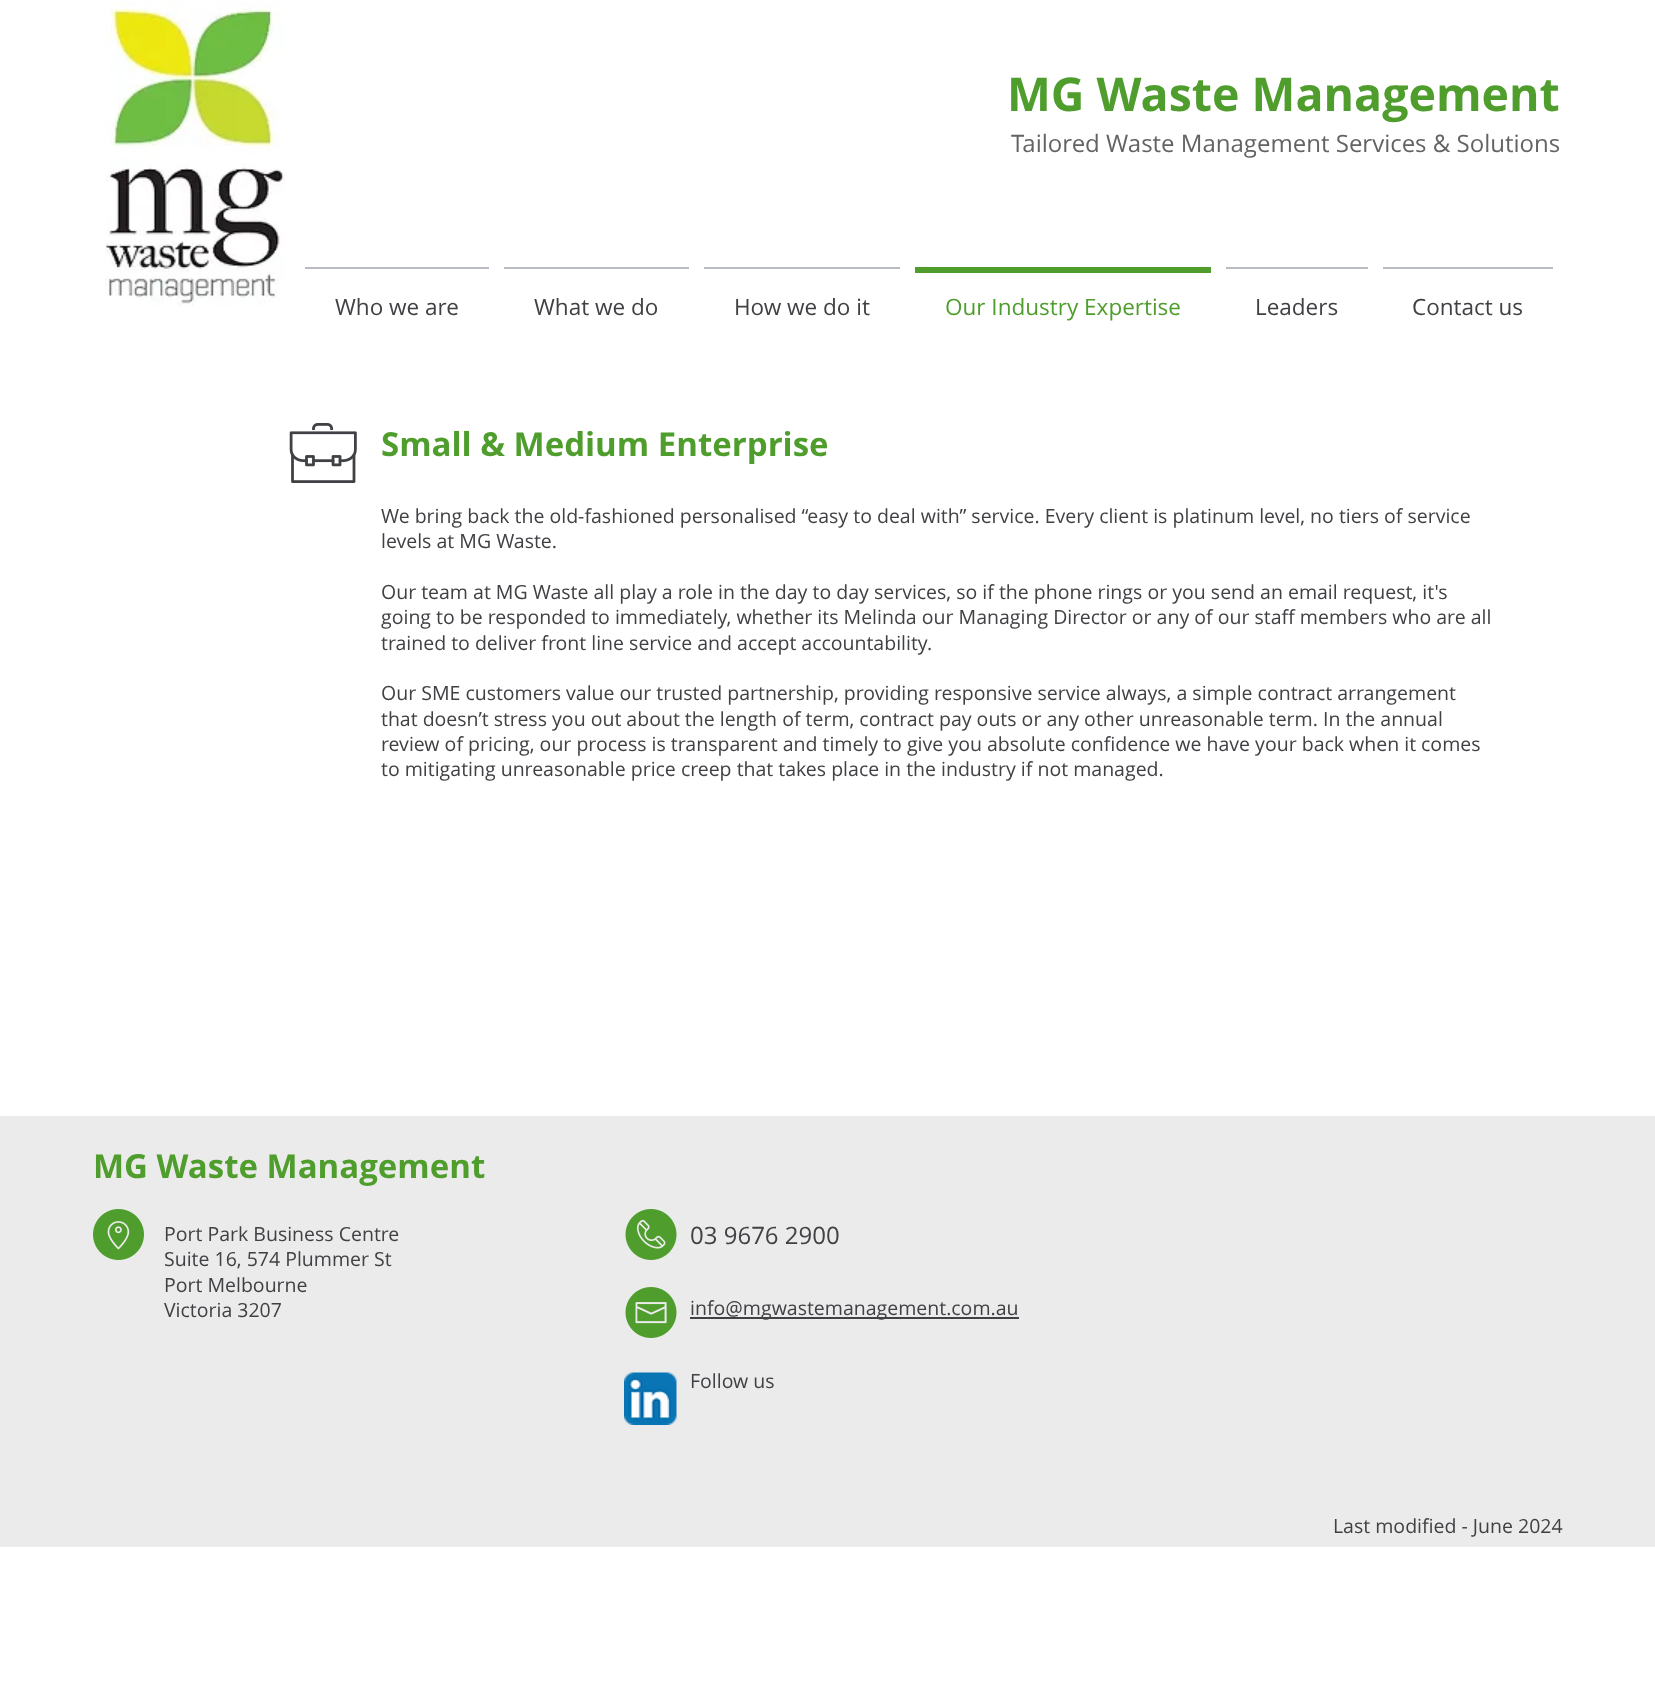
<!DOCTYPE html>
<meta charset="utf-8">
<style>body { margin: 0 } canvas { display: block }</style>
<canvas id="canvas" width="1655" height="1707"></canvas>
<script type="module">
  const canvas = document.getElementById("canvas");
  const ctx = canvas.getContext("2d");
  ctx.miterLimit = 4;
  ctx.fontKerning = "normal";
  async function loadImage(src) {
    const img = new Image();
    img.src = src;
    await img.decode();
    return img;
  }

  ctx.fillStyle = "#ffffff";
  ctx.fillRect(0, 0, 1655, 1707);
  ctx.drawImage(await loadImage("img1.png"), 105, 2, 180, 305);
  ctx.font = "bold 46.5px Open Sans";
  ctx.fillStyle = "#4f9e2d";
  ctx.fillText("MG Waste Management", 1007, 111);
  ctx.font = "24px Open Sans";
  ctx.fillStyle = "#636363";
  ctx.fillText("Tailored Waste Management Services & Solutions", 1011, 152);
  ctx.fillStyle = "#b8bbc1";
  ctx.fillRect(305, 267, 184, 2);
  ctx.font = "22.5px Open Sans";
  ctx.fillStyle = "#404144";
  ctx.fillText("Who we are", 335, 315);
  ctx.fillStyle = "#b8bbc1";
  ctx.fillRect(504, 267, 185, 2);
  ctx.fillStyle = "#404144";
  ctx.fillText("What we do", 534, 315);
  ctx.fillStyle = "#b8bbc1";
  ctx.fillRect(704, 267, 196, 2);
  ctx.fillStyle = "#404144";
  ctx.fillText("How we do it", 734, 315);
  ctx.fillStyle = "#4f9e2d";
  ctx.fillRect(915, 267, 296, 6);
  ctx.fillText("Our Industry Expertise", 945, 315);
  ctx.fillStyle = "#b8bbc1";
  ctx.fillRect(1226, 267, 142, 2);
  ctx.fillStyle = "#404144";
  ctx.fillText("Leaders", 1255, 315);
  ctx.fillStyle = "#b8bbc1";
  ctx.fillRect(1383, 267, 170, 2);
  ctx.fillStyle = "#404144";
  ctx.fillText("Contact us", 1412, 315);
  ctx.drawImage(await loadImage("img2.png"), 289, 423, 68, 60);
  ctx.font = "bold 33px Open Sans";
  ctx.fillStyle = "#4f9e2d";
  ctx.fillText("Small & Medium Enterprise", 381, 456);
  ctx.font = "19.5px Open Sans";
  ctx.fillStyle = "#404144";
  ctx.fillText("We bring back the old-fashioned personalised “easy to deal with” service. Every client is platinum level, no tiers of service", 381, 523);
  ctx.fillText("levels at MG Waste.", 381, 548);
  ctx.fillText("Our team at MG Waste all play a role in the day to day services, so if the phone rings or you send an email request, it's", 381, 599);
  ctx.fillText("going to be responded to immediately, whether its Melinda our Managing Director or any of our staff members who are all", 381, 624);
  ctx.fillText("trained to deliver front line service and accept accountability.", 381, 650);
  ctx.fillText("Our SME customers value our trusted partnership, providing responsive service always, a simple contract arrangement", 381, 700);
  ctx.fillText("that doesn’t stress you out about the length of term, contract pay outs or any other unreasonable term. In the annual", 381, 726);
  ctx.fillText("review of pricing, our process is transparent and timely to give you absolute confidence we have your back when it comes", 381, 751);
  ctx.fillText("to mitigating unreasonable price creep that takes place in the industry if not managed.", 381, 776);
  ctx.fillStyle = "#ebebeb";
  ctx.fillRect(0, 1116, 1655, 431);
  ctx.font = "bold 33px Open Sans";
  ctx.fillStyle = "#4f9e2d";
  ctx.fillText("MG Waste Management", 93, 1178);
  ctx.font = "19.5px Open Sans";
  ctx.fillStyle = "#404144";
  ctx.fillText("Port Park Business Centre", 164, 1241);
  ctx.fillText("Suite 16, 574 Plummer St", 164, 1266);
  ctx.fillText("Port Melbourne", 164, 1292);
  ctx.fillText("Victoria 3207", 164, 1317);
  ctx.drawImage(await loadImage("img3.png"), 93, 1209, 51, 51);
  ctx.drawImage(await loadImage("img4.png"), 625, 1209, 52, 51);
  ctx.font = "24px Open Sans";
  ctx.fillText("03 9676 2900", 690, 1244);
  ctx.fillRect(690, 1317, 329, 2);
  ctx.font = "19.5px Open Sans";
  ctx.fillText("info@mgwastemanagement.com.au", 690, 1315);
  ctx.fillText("Follow us", 690, 1388);
  ctx.drawImage(await loadImage("img5.png"), 625, 1287, 52, 51);
  ctx.drawImage(await loadImage("img6.png"), 624, 1372, 53, 53);
  ctx.fillText("Last modified - June 2024", 1333, 1533);
</script>
